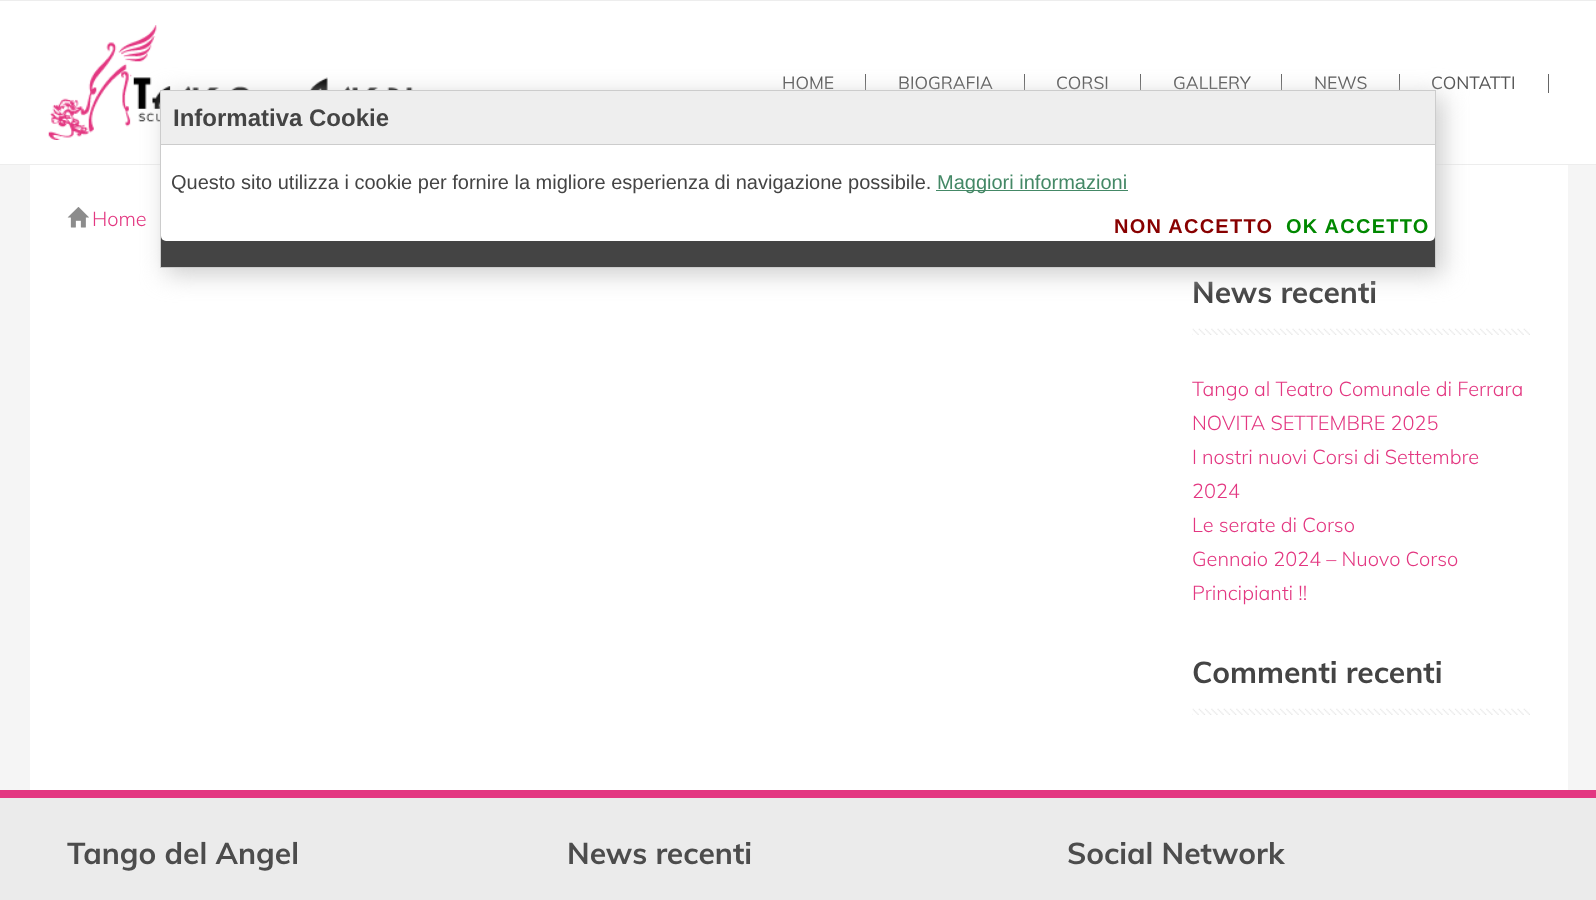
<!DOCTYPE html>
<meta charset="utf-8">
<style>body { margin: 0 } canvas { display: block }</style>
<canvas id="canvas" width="1596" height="900"></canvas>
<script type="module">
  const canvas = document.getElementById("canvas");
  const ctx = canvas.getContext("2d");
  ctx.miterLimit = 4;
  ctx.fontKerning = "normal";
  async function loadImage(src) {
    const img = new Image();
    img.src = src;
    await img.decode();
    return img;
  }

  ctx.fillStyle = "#f5f5f5";
  ctx.fillRect(0, 0, 1596, 900);
  ctx.fillStyle = "#ffffff";
  ctx.fillRect(0, 1, 1596, 163);
  ctx.fillStyle = "#ededed";
  ctx.fillRect(0, 0, 1596, 1);
  ctx.fillRect(0, 164, 1596, 1);
  ctx.drawImage(await loadImage("img1.png"), 48, 25, 365, 115);
  ctx.fillStyle = "#666666";
  ctx.fillRect(865, 74, 1, 19);
  ctx.font = "17.5px Muli";
  ctx.fillStyle = "#555555";
  ctx.fillText("HOME", 782, 89);
  ctx.fillStyle = "#666666";
  ctx.fillRect(1024, 74, 1, 19);
  ctx.fillStyle = "#555555";
  ctx.fillText("BIOGRAFIA", 898, 89);
  ctx.fillStyle = "#666666";
  ctx.fillRect(1140, 74, 1, 19);
  ctx.fillStyle = "#555555";
  ctx.fillText("CORSI", 1056, 89);
  ctx.fillStyle = "#666666";
  ctx.fillRect(1281, 74, 1, 19);
  ctx.fillStyle = "#555555";
  ctx.fillText("GALLERY", 1173, 89);
  ctx.fillStyle = "#666666";
  ctx.fillRect(1399, 74, 1, 19);
  ctx.fillStyle = "#555555";
  ctx.fillText("NEWS", 1314, 89);
  ctx.fillStyle = "#666666";
  ctx.fillRect(1548, 74, 1, 19);
  ctx.fillStyle = "#555555";
  ctx.fillText("CONTATTI", 1431, 89);
  ctx.fillStyle = "#ffffff";
  ctx.fillRect(30, 165, 1538, 625);
  ctx.drawImage(await loadImage("img2.png"), 67, 207, 22, 21);
  ctx.font = "300 20px Muli";
  ctx.fillStyle = "#e33781";
  ctx.fillText("Home", 92, 226);
  ctx.font = "bold 30px Muli";
  ctx.fillStyle = "#444444";
  ctx.fillText("News recenti", 1192, 303);
  ctx.drawImage(await loadImage("img3.png"), 1192, 328, 338, 7);
  ctx.font = "300 20px Muli";
  ctx.fillStyle = "#e33781";
  ctx.fillText("Tango al Teatro Comunale di Ferrara", 1192, 396);
  ctx.fillText("NOVITA SETTEMBRE 2025", 1192, 430);
  ctx.fillText("I nostri nuovi Corsi di Settembre", 1192, 464);
  ctx.fillText("2024", 1192, 498);
  ctx.fillText("Le serate di Corso", 1192, 532);
  ctx.fillText("Gennaio 2024 – Nuovo Corso", 1192, 566);
  ctx.fillText("Principianti !!", 1192, 600);
  ctx.font = "bold 30px Muli";
  ctx.fillStyle = "#444444";
  ctx.fillText("Commenti recenti", 1192, 683);
  ctx.drawImage(await loadImage("img4.png"), 1192, 708, 338, 7);
  ctx.fillStyle = "#ebebeb";
  ctx.fillRect(0, 798, 1596, 102);
  ctx.fillStyle = "#e33781";
  ctx.fillRect(0, 790, 1596, 8);
  ctx.fillStyle = "#4c4c4c";
  ctx.fillText("Tango del Angel", 67, 864);
  ctx.fillText("News recenti", 567, 864);
  ctx.fillText("Social Network", 1067, 864);
  ctx.fillStyle = "#cccccc";
  ctx.filter = "blur(12.5px)";
  ctx.beginPath();
  ctx.rect(166, 96, 1277, 178);
  ctx.fill();
  ctx.filter = "none";
  ctx.fillStyle = "#444444";
  ctx.fillRect(161, 236, 1274, 31);
  ctx.strokeStyle = "#cccccc";
  ctx.strokeRect(160.5, 90.5, 1275, 177);
  ctx.fillStyle = "#ffffff";
  ctx.beginPath();
  ctx.roundRect(161, 91, 1274, 150, 5);
  ctx.fill();
  ctx.fillStyle = "#eeeeee";
  ctx.fillRect(161, 91, 1274, 53);
  ctx.fillStyle = "#cccccc";
  ctx.fillRect(161, 144, 1274, 1);
  ctx.font = "bold 24px Liberation Sans";
  ctx.fillStyle = "#444444";
  ctx.fillText("Informativa Cookie", 173, 126);
  ctx.font = "20px Liberation Sans";
  ctx.fillText("Questo sito utilizza i cookie per fornire la migliore esperienza di navigazione possibile.", 171, 189);
  ctx.fillStyle = "#448866";
  ctx.fillRect(936, 190, 192, 1);
  ctx.fillText("Maggiori informazioni", 937, 189);
  ctx.letterSpacing = "1.25px";
  ctx.font = "bold 20px Liberation Sans";
  ctx.fillStyle = "#880000";
  ctx.fillText("NON ACCETTO", 1114, 233);
  ctx.fillStyle = "#008800";
  ctx.fillText("OK ACCETTO", 1286, 233);
</script>
